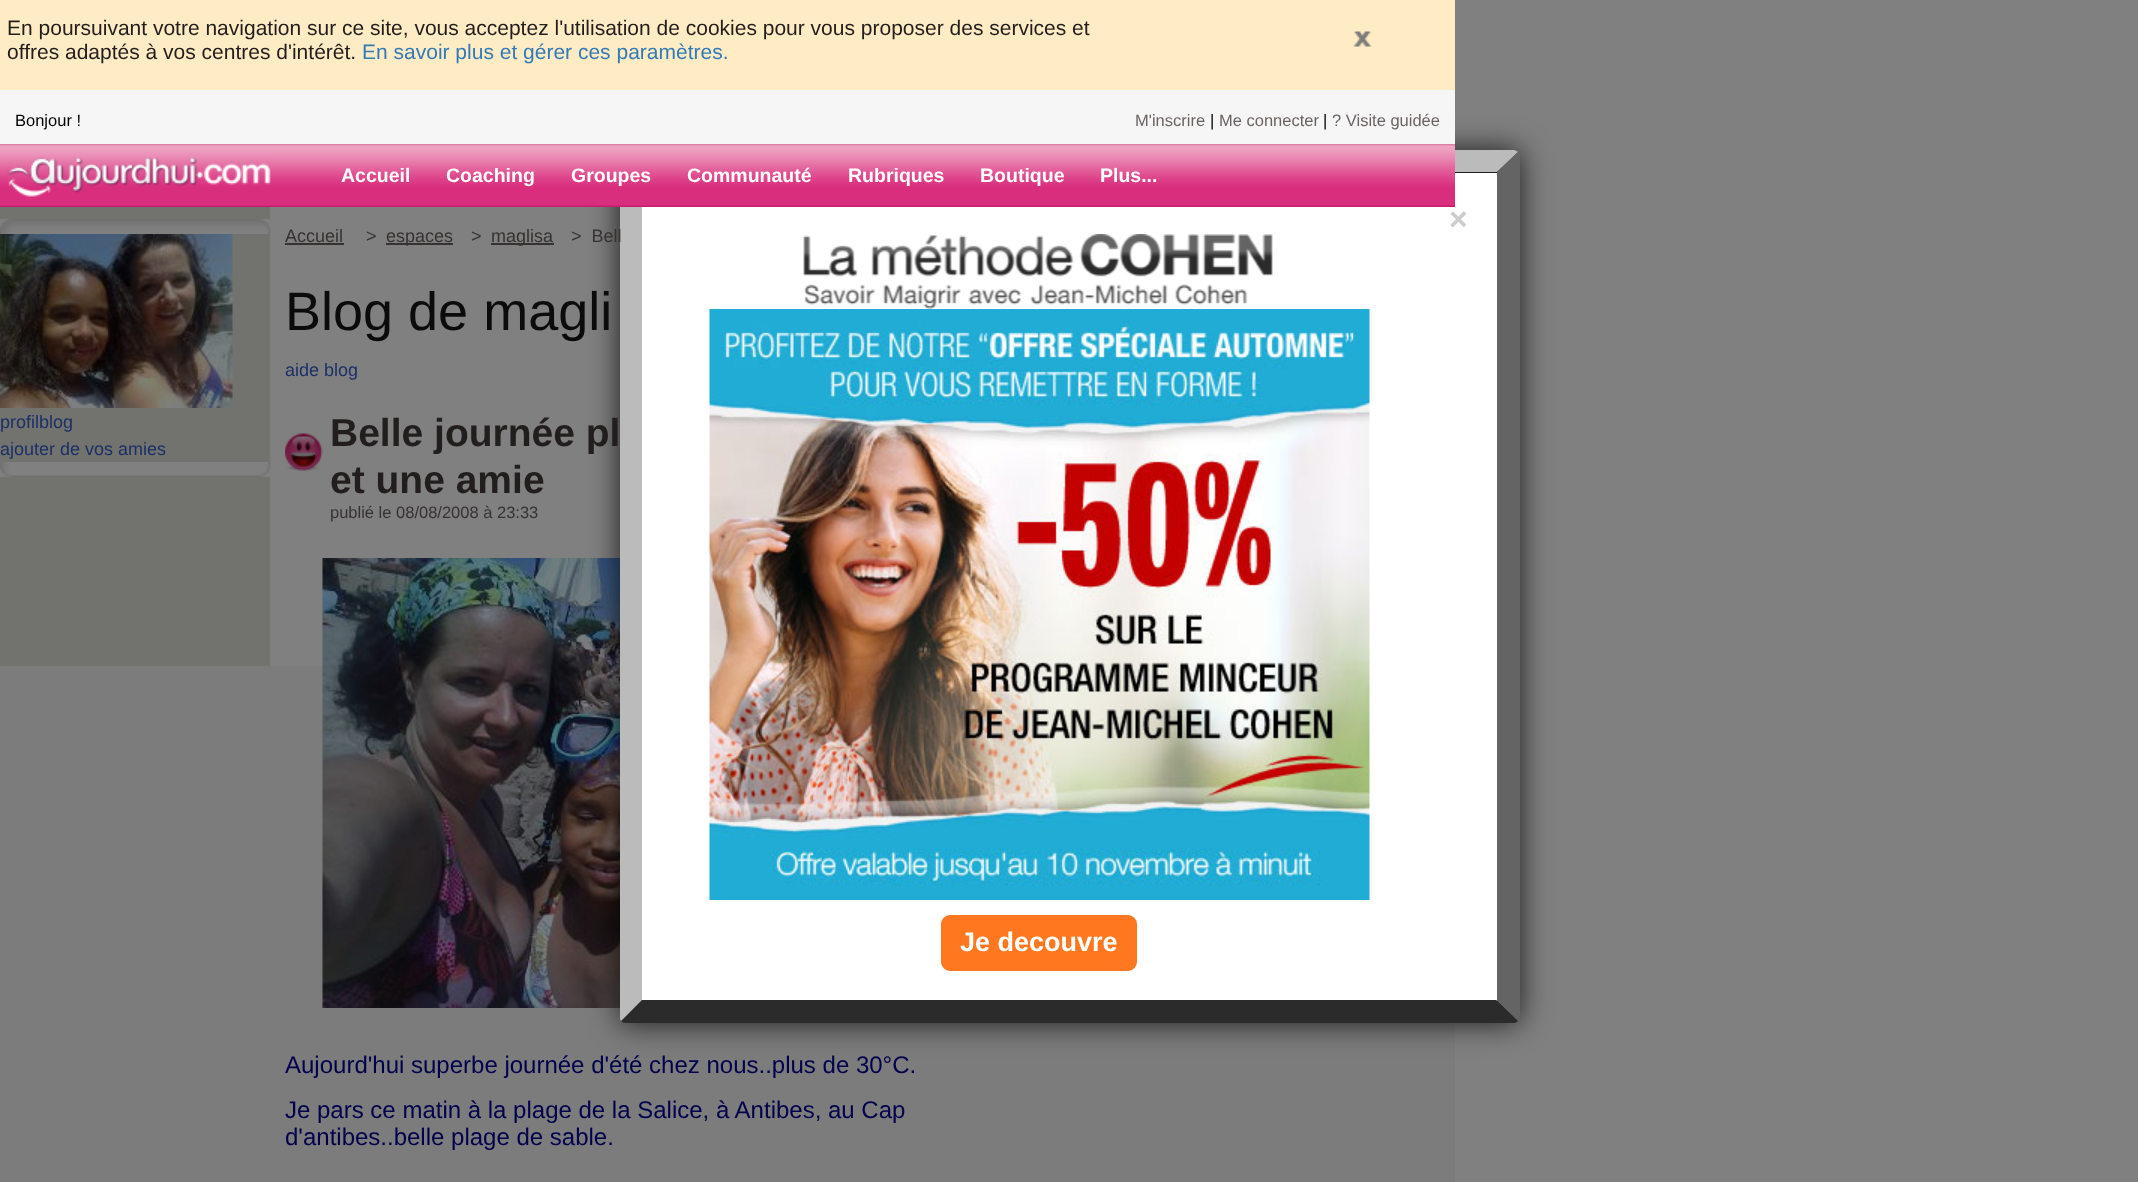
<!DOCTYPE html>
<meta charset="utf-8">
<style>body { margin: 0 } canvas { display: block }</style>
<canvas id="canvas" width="2138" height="1182"></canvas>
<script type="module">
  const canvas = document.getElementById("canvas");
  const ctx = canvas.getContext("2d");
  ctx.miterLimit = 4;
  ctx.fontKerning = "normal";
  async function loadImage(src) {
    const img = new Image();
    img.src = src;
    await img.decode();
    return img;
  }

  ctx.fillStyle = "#808080";
  ctx.fillRect(0, 0, 2138, 1182);
  ctx.fillStyle = "#7c7c7c";
  ctx.fillRect(0, 666, 1455, 516);
  ctx.drawImage(await loadImage("img9.png"), 322, 558, 320, 450);
  ctx.fillStyle = "rgba(0, 0, 0, 0.8)";
  ctx.filter = "blur(15px)";
  ctx.beginPath();
  ctx.roundRect(620, 150, 900, 873, 6);
  ctx.fill();
  ctx.filter = "none";
  ctx.fillStyle = "#f6f6f6";
  ctx.fillRect(0, 90, 1455, 54);
  ctx.fillStyle = "#ffecc4";
  ctx.fillRect(0, 0, 1455, 90);
  ctx.font = "21px Liberation Sans";
  ctx.fillStyle = "#231e1e";
  ctx.fillText("En poursuivant votre navigation sur ce site, vous acceptez l'utilisation de cookies pour vous proposer des services et", 7, 35);
  ctx.fillText("offres adaptés à vos centres d'intérêt.", 7, 59);
  ctx.fillStyle = "#337ab7";
  ctx.fillText("En savoir plus et gérer ces paramètres.", 362, 59);
  ctx.drawImage(await loadImage("img1.png"), 1353, 31, 19, 16);
  ctx.font = "16.5px Liberation Sans";
  ctx.fillStyle = "#000000";
  ctx.fillText("Bonjour !", 15, 126);
  ctx.fillStyle = "#6b6361";
  ctx.fillText("M'inscrire", 1135, 126);
  ctx.fillStyle = "#000000";
  ctx.fillText("|", 1210, 126);
  ctx.fillStyle = "#6b6361";
  ctx.fillText("Me connecter", 1219, 126);
  ctx.fillStyle = "#000000";
  ctx.fillText("|", 1323, 126);
  ctx.fillStyle = "#6b6361";
  ctx.fillText("? Visite guidée", 1332, 126);
  ctx.fillStyle = "#ffffff";
  ctx.fillRect(642, 173, 855, 828);
  ctx.fillStyle = "#bbbbbb";
  ctx.beginPath();
  ctx.moveTo(626, 150);
  ctx.bezierCurveTo(624, 150, 622, 151, 621, 152);
  ctx.lineTo(642, 172);
  ctx.lineTo(1497, 172);
  ctx.lineTo(1518, 152);
  ctx.bezierCurveTo(1517, 151, 1515, 150, 1514, 150);
  ctx.closePath();
  ctx.fill();
  ctx.fillStyle = "#646464";
  ctx.beginPath();
  ctx.moveTo(1520, 1019);
  ctx.lineTo(1518, 1021);
  ctx.lineTo(1496, 1000);
  ctx.lineTo(1497, 1000);
  ctx.lineTo(1497, 172);
  ctx.lineTo(1518, 152);
  ctx.lineTo(1520, 154);
  ctx.closePath();
  ctx.fill();
  ctx.fillStyle = "#2b2b2b";
  ctx.beginPath();
  ctx.moveTo(626, 1023);
  ctx.lineTo(1514, 1023);
  ctx.bezierCurveTo(1515, 1023, 1517, 1022, 1518, 1021);
  ctx.lineTo(1496, 1000);
  ctx.lineTo(642, 1000);
  ctx.lineTo(621, 1021);
  ctx.bezierCurveTo(622, 1022, 624, 1023, 626, 1023);
  ctx.closePath();
  ctx.fill();
  ctx.fillStyle = "#bbbbbb";
  ctx.beginPath();
  ctx.moveTo(621, 152);
  ctx.bezierCurveTo(620, 153, 620, 155, 620, 156);
  ctx.lineTo(620, 1017);
  ctx.bezierCurveTo(620, 1018, 620, 1020, 621, 1021);
  ctx.lineTo(642, 1000);
  ctx.lineTo(642, 172);
  ctx.closePath();
  ctx.fill();
  ctx.drawImage(await loadImage("img2.png"), 0, 144, 1455, 63);
  ctx.drawImage(await loadImage("img3.png"), 7, 157, 264, 40);
  ctx.font = "bold 19.5px Liberation Sans";
  ctx.fillStyle = "#ffffff";
  ctx.fillText("Accueil", 341, 182);
  ctx.fillText("Coaching", 446, 182);
  ctx.fillText("Groupes", 571, 182);
  ctx.fillText("Communauté", 687, 182);
  ctx.fillText("Rubriques", 848, 182);
  ctx.fillText("Boutique", 980, 182);
  ctx.fillText("Plus...", 1100, 182);
  ctx.drawImage(await loadImage("img4.png"), 0, 207, 271, 459);
  ctx.drawImage(await loadImage("img5.png"), 0, 219, 270, 15);
  ctx.drawImage(await loadImage("img6.png"), 0, 234, 233, 174);
  ctx.font = "18px Liberation Sans";
  ctx.fillStyle = "#1b3067";
  ctx.fillText("profilblog", 0, 428);
  ctx.fillText("ajouter de vos amies", 0, 455);
  ctx.drawImage(await loadImage("img7.png"), 0, 462, 270, 15);
  ctx.fillStyle = "#363231";
  ctx.fillText("Accueil", 285, 242);
  ctx.fillRect(285, 243, 59, 2);
  ctx.fillText(">", 366, 242);
  ctx.fillRect(386, 243, 67, 2);
  ctx.fillText("espaces", 386, 242);
  ctx.fillText(">", 471, 242);
  ctx.fillRect(491, 243, 63, 2);
  ctx.fillText("maglisa", 491, 242);
  ctx.fillText(">  Bell", 571, 242);
  ctx.font = "54px Liberation Sans";
  ctx.fillStyle = "#0b0b0b";
  ctx.fillText("Blog de magli", 285, 330);
  ctx.font = "18px Liberation Sans";
  ctx.fillStyle = "#1b3067";
  ctx.fillText("aide blog", 285, 376);
  ctx.drawImage(await loadImage("img8.png"), 285, 433, 38, 38);
  ctx.font = "bold 39px Liberation Sans";
  ctx.fillStyle = "#231e1e";
  ctx.fillText("Belle journée pl", 330, 446);
  ctx.fillText("et une amie", 330, 493);
  ctx.font = "16.5px Liberation Sans";
  ctx.fillStyle = "#363231";
  ctx.fillText("publié le 08/08/2008 à 23:33", 330, 518);
  ctx.font = "24px Liberation Sans";
  ctx.fillStyle = "#00004d";
  ctx.fillText("Aujourd'hui superbe journée d'été chez nous..plus de 30°C.", 285, 1073);
  ctx.fillText("Je pars ce matin à la plage de la Salice, à Antibes, au Cap", 285, 1118);
  ctx.fillText("d'antibes..belle plage de sable.", 285, 1145);
  ctx.font = "bold 32px Liberation Sans";
  ctx.fillStyle = "#cccccc";
  ctx.fillText("×", 1449, 230);
  ctx.drawImage(await loadImage("img10.png"), 803, 234, 470, 75);
  ctx.drawImage(await loadImage("img11.png"), 709, 309, 661, 591);
  ctx.fillStyle = "#ff771f";
  ctx.beginPath();
  ctx.roundRect(942, 916, 194, 54, 8);
  ctx.fill();
  ctx.strokeStyle = "#ff771f";
  ctx.lineWidth = 2;
  ctx.stroke();
  ctx.font = "bold 27px Liberation Sans";
  ctx.fillStyle = "#ffffff";
  ctx.fillText("Je decouvre", 960, 951);
</script>
